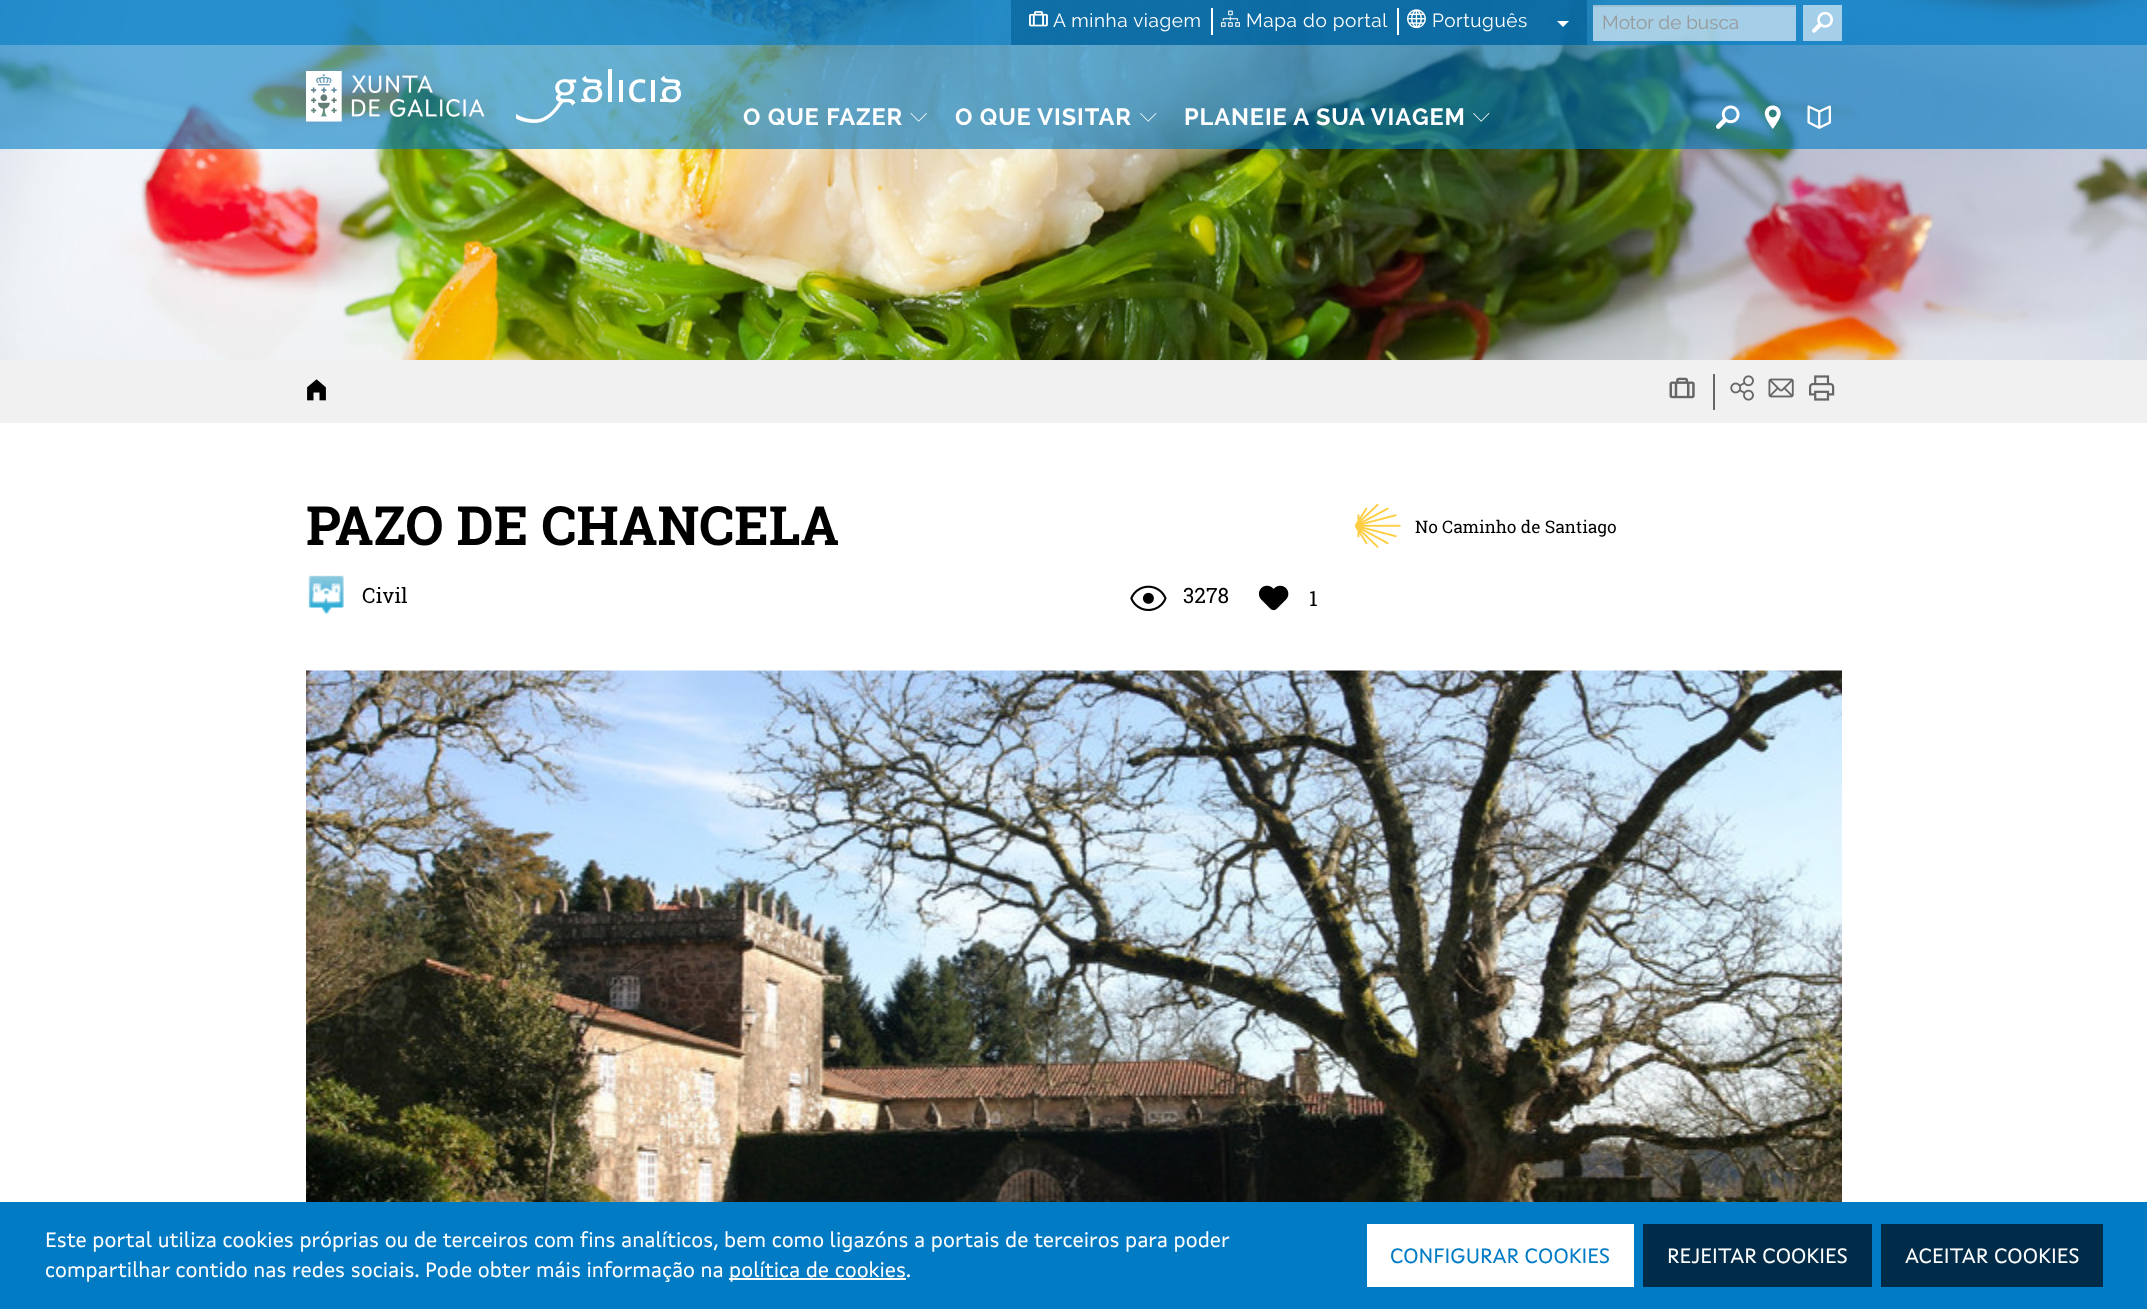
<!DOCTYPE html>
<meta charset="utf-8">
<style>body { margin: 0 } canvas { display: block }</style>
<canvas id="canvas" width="2147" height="1309"></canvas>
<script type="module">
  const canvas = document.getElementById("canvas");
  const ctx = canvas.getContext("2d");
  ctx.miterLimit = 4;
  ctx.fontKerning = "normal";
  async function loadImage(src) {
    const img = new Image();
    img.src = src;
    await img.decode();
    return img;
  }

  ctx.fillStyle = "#ffffff";
  ctx.fillRect(0, 0, 2147, 1309);
  ctx.drawImage(await loadImage("img13.png"), 0, 0, 2147, 360);
  ctx.fillStyle = "rgba(0, 123, 196, 0.6)";
  ctx.fillRect(0, 0, 2147, 149);
  ctx.fillRect(0, 0, 2147, 45);
  ctx.fillStyle = "rgba(0, 91, 145, 0.6)";
  ctx.fillRect(1011, 0, 576, 45);
  ctx.fillStyle = "#ffffff";
  ctx.fillRect(1211, 8, 2, 27);
  ctx.drawImage(await loadImage("img1.png"), 1029, 11, 19, 16);
  ctx.letterSpacing = "0.6px";
  ctx.font = "19px Raleway";
  ctx.fillText("A minha viagem", 1053, 27);
  ctx.fillRect(1397, 8, 2, 27);
  ctx.drawImage(await loadImage("img2.png"), 1221, 10, 19, 17);
  ctx.fillText("Mapa do portal", 1246, 27);
  ctx.drawImage(await loadImage("img3.png"), 1407, 9, 19, 20);
  ctx.fillText("Português", 1432, 27);
  ctx.beginPath();
  ctx.moveTo(1557, 21);
  ctx.lineTo(1569, 21);
  ctx.lineTo(1563, 27);
  ctx.closePath();
  ctx.fill();
  ctx.fillStyle = "rgba(255, 255, 255, 0.6)";
  ctx.fillRect(1593, 5, 203, 36);
  ctx.fillStyle = "rgba(0, 0, 0, 0.07)";
  ctx.fillRect(1593, 5, 203, 2);
  ctx.letterSpacing = "0px";
  ctx.fillStyle = "#999999";
  ctx.fillText("Motor de busca", 1602, 29);
  ctx.fillStyle = "rgba(255, 255, 255, 0.6)";
  ctx.fillRect(1803, 5, 39, 36);
  ctx.drawImage(await loadImage("img4.png"), 1812, 11, 21, 22);
  ctx.drawImage(await loadImage("img5.png"), 306, 71, 179, 51);
  ctx.drawImage(await loadImage("img6.png"), 516, 69, 165, 54);
  ctx.letterSpacing = "0.9px";
  ctx.font = "bold 23.5px Raleway";
  ctx.fillStyle = "#ffffff";
  ctx.fillText("O QUE FAZER", 743, 125);
  ctx.drawImage(await loadImage("img7.png"), 910, 113, 17, 9);
  ctx.fillText("O QUE VISITAR", 955, 125);
  ctx.drawImage(await loadImage("img8.png"), 1140, 113, 17, 9);
  ctx.fillText("PLANEIE A SUA VIAGEM", 1184, 125);
  ctx.drawImage(await loadImage("img9.png"), 1473, 113, 17, 9);
  ctx.drawImage(await loadImage("img10.png"), 1716, 105, 24, 24);
  ctx.drawImage(await loadImage("img11.png"), 1764, 105, 17, 24);
  ctx.drawImage(await loadImage("img12.png"), 1807, 105, 24, 24);
  ctx.fillStyle = "#f1f1f1";
  ctx.fillRect(0, 360, 2147, 63);
  ctx.drawImage(await loadImage("img14.png"), 307, 379, 19, 22);
  ctx.fillStyle = "#666666";
  ctx.fillRect(1713, 374, 2, 36);
  ctx.drawImage(await loadImage("img15.png"), 1669, 377, 26, 22);
  ctx.drawImage(await loadImage("img16.png"), 1730, 375, 24, 26);
  ctx.drawImage(await loadImage("img17.png"), 1768, 378, 26, 20);
  ctx.drawImage(await loadImage("img18.png"), 1809, 375, 26, 26);
  ctx.letterSpacing = "0px";
  ctx.font = "bold 54px Roboto Slab";
  ctx.fillStyle = "#000000";
  ctx.fillText("PAZO DE CHANCELA", 306, 545);
  ctx.drawImage(await loadImage("img19.png"), 308, 575, 36, 39);
  ctx.font = "21px Roboto Slab";
  ctx.fillText("Civil", 362, 603);
  ctx.drawImage(await loadImage("img20.png"), 1130, 585, 37, 27);
  ctx.fillText("3278", 1183, 603);
  ctx.drawImage(await loadImage("img21.png"), 1258, 585, 31, 26);
  ctx.fillText("1", 1309, 606);
  ctx.drawImage(await loadImage("img22.png"), 1355, 504, 46, 44);
  ctx.font = "17.25px Roboto Slab";
  ctx.fillText("No Caminho de Santiago", 1415, 533);
  ctx.drawImage(await loadImage("img23.png"), 306, 670, 1536, 532);
  ctx.fillStyle = "#007bc4";
  ctx.fillRect(0, 1202, 2147, 107);
  ctx.font = "21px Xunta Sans";
  ctx.fillStyle = "#ffffff";
  ctx.fillText("Este portal utiliza cookies próprias ou de terceiros com fins analíticos, bem como ligazóns a portais de terceiros para poder", 45, 1247);
  ctx.fillText("compartilhar contido nas redes sociais. Pode obter máis informação na", 45, 1277);
  ctx.fillRect(729, 1278, 177, 2);
  ctx.fillText("política de cookies.", 729, 1277);
  ctx.fillRect(1367, 1224, 267, 63);
  ctx.fillStyle = "#007bc4";
  ctx.fillText("CONFIGURAR COOKIES", 1390, 1263);
  ctx.fillStyle = "#002b49";
  ctx.fillRect(1643, 1224, 229, 63);
  ctx.fillStyle = "#ffffff";
  ctx.fillText("REJEITAR COOKIES", 1667, 1263);
  ctx.fillStyle = "#002b49";
  ctx.fillRect(1881, 1224, 222, 63);
  ctx.fillStyle = "#ffffff";
  ctx.fillText("ACEITAR COOKIES", 1905, 1263);
</script>
